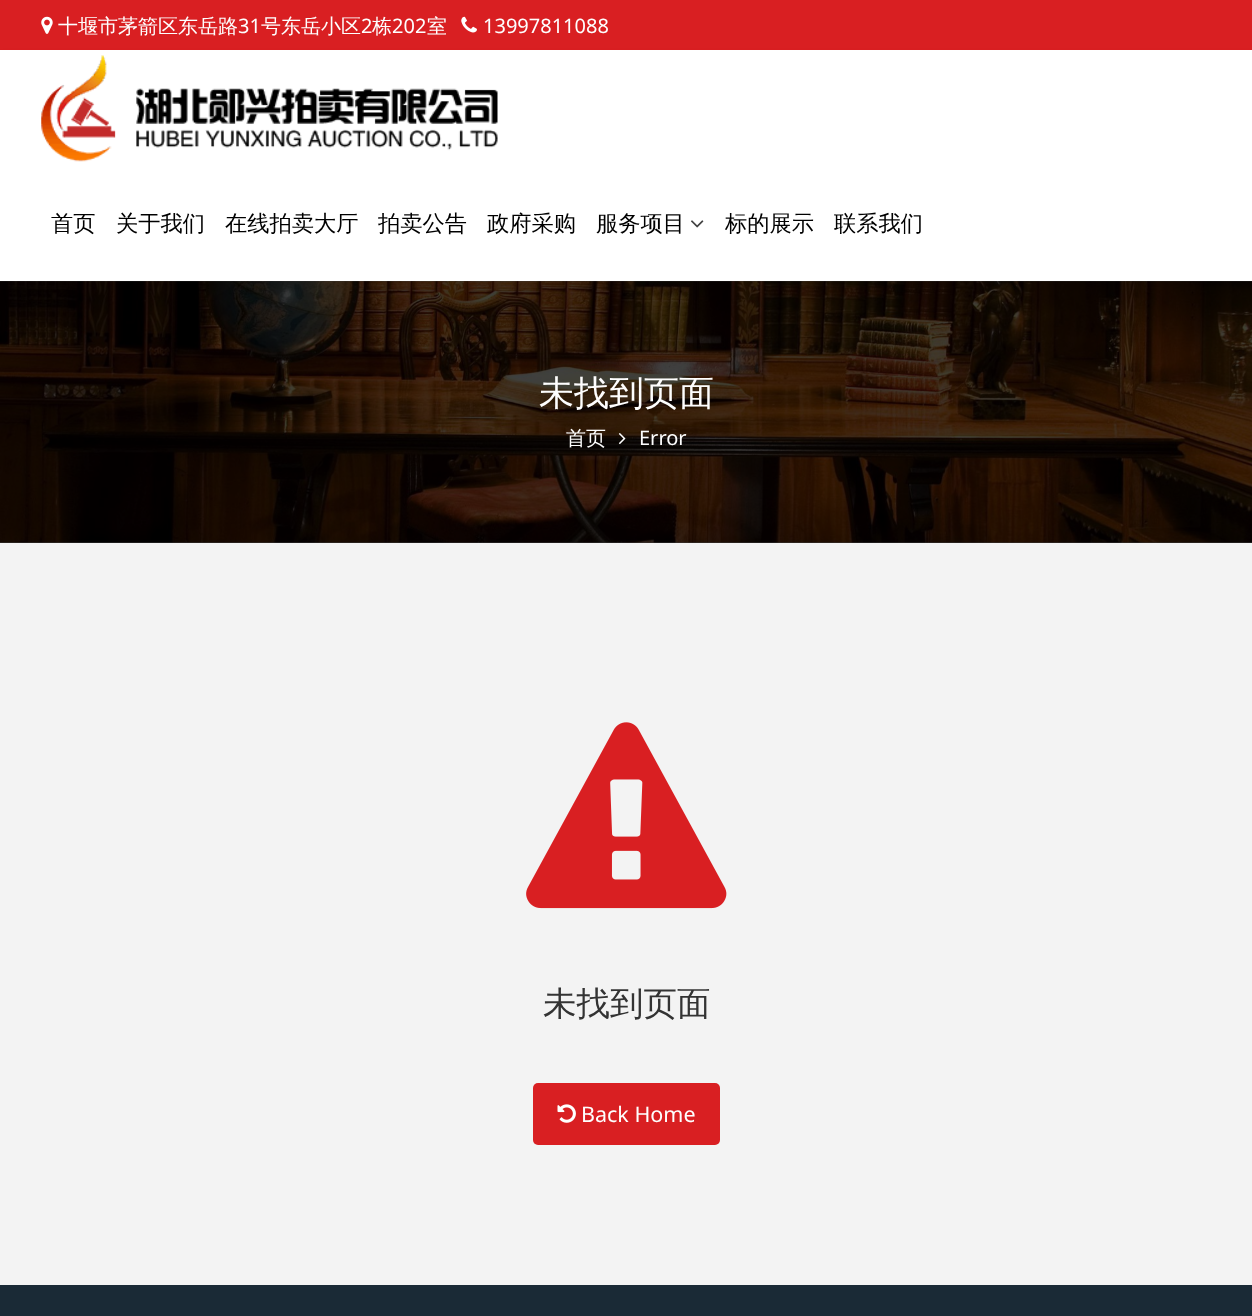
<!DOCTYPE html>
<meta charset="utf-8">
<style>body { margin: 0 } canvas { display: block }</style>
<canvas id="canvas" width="1252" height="1316"></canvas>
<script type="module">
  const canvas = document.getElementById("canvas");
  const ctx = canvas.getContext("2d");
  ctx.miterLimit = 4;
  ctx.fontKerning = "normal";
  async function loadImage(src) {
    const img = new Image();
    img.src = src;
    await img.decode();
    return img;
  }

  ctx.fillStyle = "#f3f3f3";
  ctx.fillRect(0, 0, 1252, 1316);
  ctx.fillStyle = "#d91f22";
  ctx.fillRect(0, 0, 1252, 50);
  ctx.drawImage(await loadImage("img1.png"), 41, 16, 12, 18);
  ctx.font = "500 20px WenQuanYi Zen Hei";
  ctx.fillStyle = "#fefefe";
  ctx.fillText("十堰市茅箭区东岳路", 58, 33);
  ctx.font = "20px Noto Sans";
  ctx.fillText("31", 238, 33);
  ctx.font = "500 20px WenQuanYi Zen Hei";
  ctx.fillText("号东岳小区", 261, 33);
  ctx.font = "20px Noto Sans";
  ctx.fillText("2", 361, 33);
  ctx.font = "500 20px WenQuanYi Zen Hei";
  ctx.fillText("栋", 372, 33);
  ctx.font = "20px Noto Sans";
  ctx.fillText("202", 392, 33);
  ctx.font = "500 20px WenQuanYi Zen Hei";
  ctx.fillText("室", 427, 33);
  ctx.drawImage(await loadImage("img2.png"), 461, 16, 16, 17);
  ctx.font = "20px Noto Sans";
  ctx.fillText("13997811088", 483, 33);
  ctx.fillStyle = "rgba(33, 37, 41, 0.07)";
  ctx.filter = "blur(2.5px)";
  ctx.beginPath();
  ctx.rect(0, 53, 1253, 231);
  ctx.fill();
  ctx.filter = "none";
  ctx.fillStyle = "#ffffff";
  ctx.fillRect(0, 50, 1252, 231);
  ctx.drawImage(await loadImage("img3.png"), 41, 55, 457, 107);
  ctx.font = "500 22.25px WenQuanYi Zen Hei";
  ctx.fillStyle = "#000000";
  ctx.fillText("首页", 51, 231);
  ctx.fillText("关于我们", 116, 231);
  ctx.fillText("在线拍卖大厅", 225, 231);
  ctx.fillText("拍卖公告", 378, 231);
  ctx.fillText("政府采购", 487, 231);
  ctx.fillText("服务项目", 596, 231);
  ctx.drawImage(await loadImage("img4.png"), 691, 220, 13, 8);
  ctx.fillText("标的展示", 725, 231);
  ctx.fillText("联系我们", 834, 231);
  ctx.drawImage(await loadImage("img5.png"), 0, 281, 1252, 262);
  ctx.fillStyle = "rgba(0, 0, 0, 0.75)";
  ctx.fillRect(0, 281, 1252, 262);
  ctx.font = "500 35px WenQuanYi Zen Hei";
  ctx.fillStyle = "#fefefe";
  ctx.fillText("未找到页面", 539, 405);
  ctx.font = "500 20px WenQuanYi Zen Hei";
  ctx.fillText("首页", 566, 445);
  ctx.drawImage(await loadImage("img6.png"), 618, 433, 8, 12);
  ctx.font = "20px Noto Sans";
  ctx.fillText("Error", 639, 445);
  ctx.drawImage(await loadImage("img7.png"), 526, 722, 201, 187);
  ctx.font = "500 33.5px WenQuanYi Zen Hei";
  ctx.fillStyle = "#333333";
  ctx.fillText("未找到页面", 543, 1015);
  ctx.fillStyle = "#d91f22";
  ctx.beginPath();
  ctx.roundRect(533, 1083, 187, 62, 5);
  ctx.fill();
  ctx.drawImage(await loadImage("img8.png"), 557, 1104, 19, 19);
  ctx.font = "21.5px Noto Sans";
  ctx.fillStyle = "#fefefe";
  ctx.fillText("Back Home", 581, 1122);
  ctx.fillStyle = "#1a2a36";
  ctx.fillRect(0, 1285, 1252, 31);
</script>
